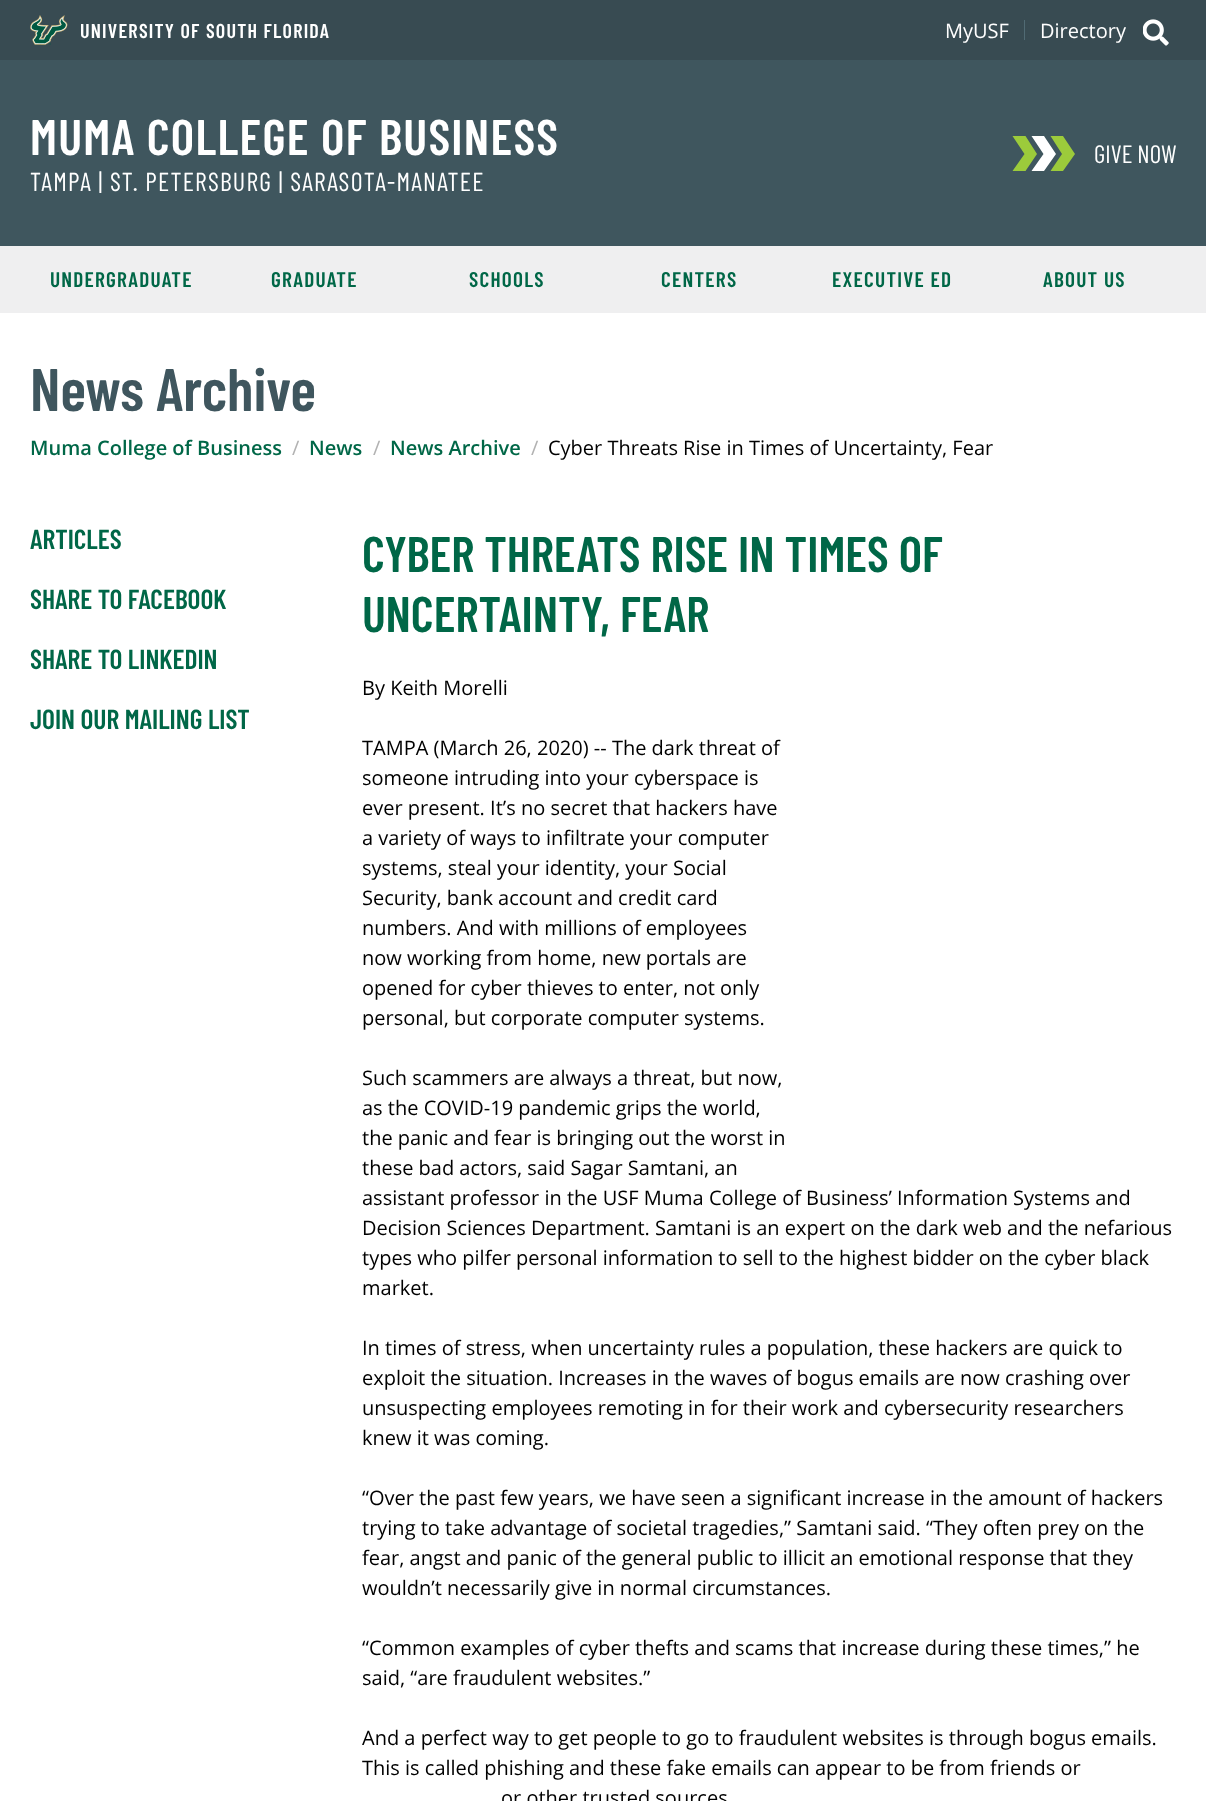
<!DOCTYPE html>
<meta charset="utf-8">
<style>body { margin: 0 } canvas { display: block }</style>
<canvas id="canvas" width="1206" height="1801"></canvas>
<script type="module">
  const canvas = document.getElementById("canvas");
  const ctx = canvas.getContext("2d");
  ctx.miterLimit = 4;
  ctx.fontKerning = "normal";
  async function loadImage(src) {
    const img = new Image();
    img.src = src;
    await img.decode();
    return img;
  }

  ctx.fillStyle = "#ffffff";
  ctx.fillRect(0, 0, 1206, 1801);
  ctx.fillStyle = "#3f565e";
  ctx.fillRect(0, 60, 1206, 186);
  ctx.fillStyle = "#384b52";
  ctx.fillRect(0, 0, 1206, 60);
  ctx.drawImage(await loadImage("img1.png"), 30, 15, 38, 30);
  ctx.letterSpacing = "1.25px";
  ctx.font = "600 20px Barlow Condensed";
  ctx.fillStyle = "#ffffff";
  ctx.fillText("UNIVERSITY OF SOUTH FLORIDA", 80, 38);
  ctx.font = "600 50px Barlow Condensed";
  ctx.fillText("MUMA COLLEGE OF BUSINESS", 30, 155);
  ctx.font = "26px Barlow Condensed";
  ctx.fillText("TAMPA | ST. PETERSBURG | SARASOTA-MANATEE", 30, 191);
  ctx.drawImage(await loadImage("img2.png"), 1143, 19, 26, 27);
  ctx.letterSpacing = "0px";
  ctx.font = "20px Open Sans";
  ctx.fillText("MyUSF", 945, 38);
  ctx.fillStyle = "#516b74";
  ctx.fillRect(1024, 20, 1, 20);
  ctx.fillStyle = "#ffffff";
  ctx.fillText("Directory", 1040, 38);
  ctx.fillStyle = "#9ccb3b";
  ctx.beginPath();
  ctx.moveTo(1063, 136);
  ctx.lineTo(1050.5, 136);
  ctx.lineTo(1062, 154);
  ctx.lineTo(1050.5, 171);
  ctx.lineTo(1063, 171);
  ctx.lineTo(1075, 154);
  ctx.closePath();
  ctx.fill();
  ctx.fillStyle = "#ffffff";
  ctx.beginPath();
  ctx.moveTo(1044, 136);
  ctx.lineTo(1031.5, 136);
  ctx.lineTo(1043.5, 154);
  ctx.lineTo(1031.5, 171);
  ctx.lineTo(1044, 171);
  ctx.lineTo(1056, 154);
  ctx.closePath();
  ctx.fill();
  ctx.fillStyle = "#9ccb3b";
  ctx.beginPath();
  ctx.moveTo(1025.5, 136);
  ctx.lineTo(1012.5, 136);
  ctx.lineTo(1024.5, 154);
  ctx.lineTo(1012.5, 171);
  ctx.lineTo(1025.5, 171);
  ctx.lineTo(1037, 154);
  ctx.closePath();
  ctx.fill();
  ctx.font = "25px Barlow Condensed";
  ctx.fillStyle = "#ffffff";
  ctx.fillText("GIVE NOW", 1094, 163);
  ctx.fillStyle = "#efeff0";
  ctx.fillRect(0, 246, 1206, 67);
  ctx.letterSpacing = "1.25px";
  ctx.font = "600 21.25px Barlow Condensed";
  ctx.fillStyle = "#006747";
  ctx.fillText("UNDERGRADUATE", 50, 287);
  ctx.fillText("GRADUATE", 271, 287);
  ctx.fillText("SCHOOLS", 469, 287);
  ctx.fillText("CENTERS", 661, 287);
  ctx.fillText("EXECUTIVE ED", 832, 287);
  ctx.fillText("ABOUT US", 1043, 287);
  ctx.letterSpacing = "0px";
  ctx.font = "600 60px Barlow Condensed";
  ctx.fillStyle = "#3f565e";
  ctx.fillText("News Archive", 30, 411);
  ctx.font = "600 20px Open Sans";
  ctx.fillStyle = "#006747";
  ctx.fillText("Muma College of Business", 30, 455);
  ctx.font = "20px Open Sans";
  ctx.fillStyle = "#b2b2b2";
  ctx.fillText("/", 292, 455);
  ctx.font = "600 20px Open Sans";
  ctx.fillStyle = "#006747";
  ctx.fillText("News", 309, 455);
  ctx.font = "20px Open Sans";
  ctx.fillStyle = "#b2b2b2";
  ctx.fillText("/", 373, 455);
  ctx.font = "600 20px Open Sans";
  ctx.fillStyle = "#006747";
  ctx.fillText("News Archive", 390, 455);
  ctx.font = "20px Open Sans";
  ctx.fillStyle = "#b2b2b2";
  ctx.fillText("/", 531, 455);
  ctx.fillStyle = "#000000";
  ctx.fillText("Cyber Threats Rise in Times of Uncertainty, Fear", 548, 455);
  ctx.font = "600 27.5px Barlow Condensed";
  ctx.fillStyle = "#006747";
  ctx.fillText("ARTICLES", 30, 549);
  ctx.fillText("SHARE TO FACEBOOK", 30, 609);
  ctx.fillText("SHARE TO LINKEDIN", 30, 669);
  ctx.fillText("JOIN OUR MAILING LIST", 30, 729);
  ctx.font = "600 50px Barlow Condensed";
  ctx.fillText("CYBER THREATS RISE IN TIMES OF", 362, 572);
  ctx.fillText("UNCERTAINTY, FEAR", 362, 632);
  ctx.font = "20px Open Sans";
  ctx.fillStyle = "#000000";
  ctx.fillText("By Keith Morelli", 362, 695);
  ctx.fillText("TAMPA (March 26, 2020) -- The dark threat of", 362, 755);
  ctx.fillText("someone intruding into your cyberspace is", 362, 785);
  ctx.fillText("ever present. It’s no secret that hackers have", 362, 815);
  ctx.fillText("a variety of ways to infiltrate your computer", 362, 845);
  ctx.fillText("systems, steal your identity, your Social", 362, 875);
  ctx.fillText("Security, bank account and credit card", 362, 905);
  ctx.fillText("numbers. And with millions of employees", 362, 935);
  ctx.fillText("now working from home, new portals are", 362, 965);
  ctx.fillText("opened for cyber thieves to enter, not only", 362, 995);
  ctx.fillText("personal, but corporate computer systems.", 362, 1025);
  ctx.fillText("Such scammers are always a threat, but now,", 362, 1085);
  ctx.fillText("as the COVID-19 pandemic grips the world,", 362, 1115);
  ctx.fillText("the panic and fear is bringing out the worst in", 362, 1145);
  ctx.fillText("these bad actors, said Sagar Samtani, an", 362, 1175);
  ctx.fillText("assistant professor in the USF Muma College of Business’ Information Systems and", 362, 1205);
  ctx.fillText("Decision Sciences Department. Samtani is an expert on the dark web and the nefarious", 362, 1235);
  ctx.fillText("types who pilfer personal information to sell to the highest bidder on the cyber black", 362, 1265);
  ctx.fillText("market.", 362, 1295);
  ctx.fillText("In times of stress, when uncertainty rules a population, these hackers are quick to", 362, 1355);
  ctx.fillText("exploit the situation. Increases in the waves of bogus emails are now crashing over", 362, 1385);
  ctx.fillText("unsuspecting employees remoting in for their work and cybersecurity researchers", 362, 1415);
  ctx.fillText("knew it was coming.", 362, 1445);
  ctx.fillText("“Over the past few years, we have seen a significant increase in the amount of hackers", 362, 1505);
  ctx.fillText("trying to take advantage of societal tragedies,” Samtani said. “They often prey on the", 362, 1535);
  ctx.fillText("fear, angst and panic of the general public to illicit an emotional response that they", 362, 1565);
  ctx.fillText("wouldn’t necessarily give in normal circumstances.", 362, 1595);
  ctx.fillText("“Common examples of cyber thefts and scams that increase during these times,” he", 362, 1655);
  ctx.fillText("said, “are fraudulent websites.”", 362, 1685);
  ctx.fillText("And a perfect way to get people to go to fraudulent websites is through bogus emails.", 362, 1745);
  ctx.fillText("This is called phishing and these fake emails can appear to be from friends or", 362, 1775);
  ctx.fillText("or other trusted sources", 501, 1805);
</script>
